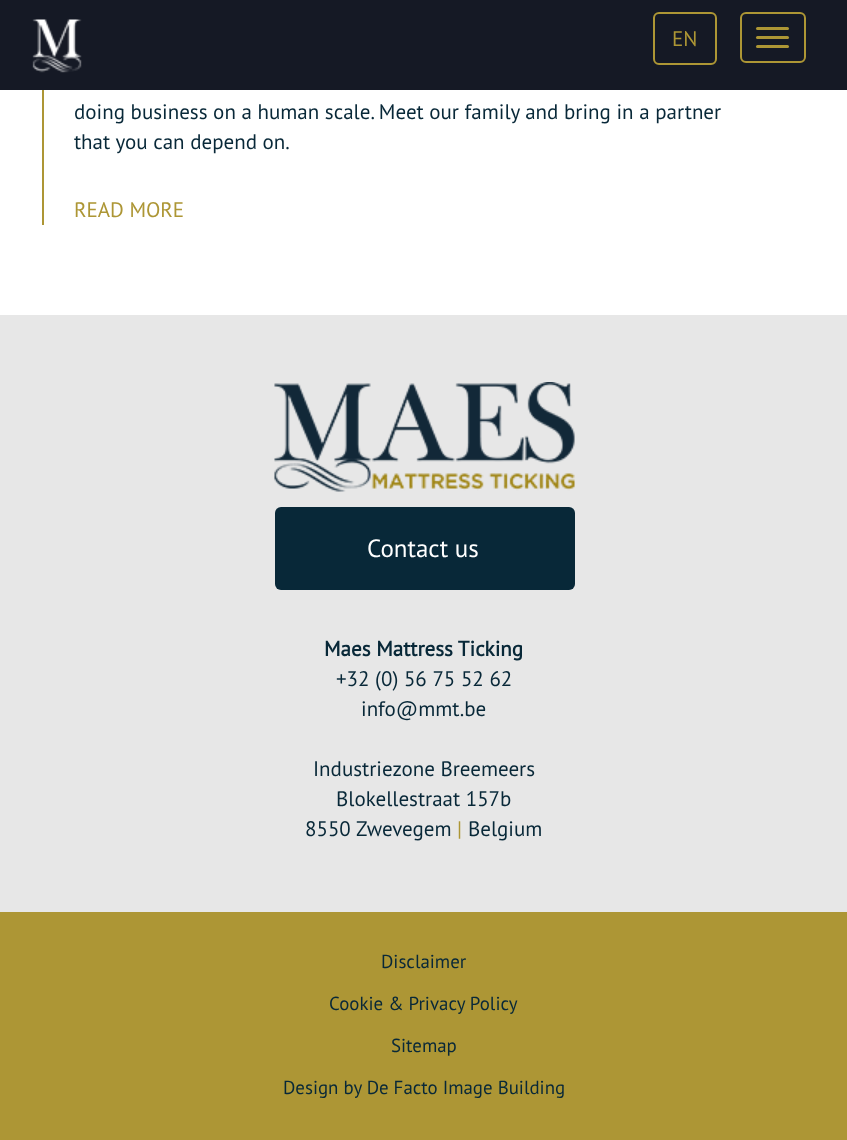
<!DOCTYPE html>
<meta charset="utf-8">
<style>body { margin: 0 } canvas { display: block }</style>
<canvas id="canvas" width="847" height="1140"></canvas>
<script type="module">
  const canvas = document.getElementById("canvas");
  const ctx = canvas.getContext("2d");
  ctx.miterLimit = 4;
  ctx.fontKerning = "normal";
  async function loadImage(src) {
    const img = new Image();
    img.src = src;
    await img.decode();
    return img;
  }

  ctx.fillStyle = "#ffffff";
  ctx.fillRect(0, 0, 847, 1140);
  ctx.fillStyle = "#151925";
  ctx.fillRect(0, 0, 847, 90);
  ctx.drawImage(await loadImage("img1.png"), 32, 19, 50, 54);
  ctx.beginPath();
  ctx.roundRect(654, 13, 62, 51, 5);
  ctx.strokeStyle = "#ad9635";
  ctx.lineWidth = 2;
  ctx.stroke();
  ctx.font = "21px PT Sans";
  ctx.fillStyle = "#ad9635";
  ctx.fillText("EN", 672, 46);
  ctx.beginPath();
  ctx.roundRect(741, 13, 64, 49, 5);
  ctx.stroke();
  ctx.beginPath();
  ctx.roundRect(756, 27, 33, 3, 1.5);
  ctx.fill();
  ctx.beginPath();
  ctx.roundRect(756, 36, 33, 3, 1.5);
  ctx.fill();
  ctx.beginPath();
  ctx.roundRect(756, 45, 33, 3, 1.5);
  ctx.fill();
  ctx.fillRect(42, 90, 2, 135);
  ctx.fillStyle = "#082838";
  ctx.fillText("doing business on a human scale. Meet our family and bring in a partner", 74, 119);
  ctx.fillText("that you can depend on.", 74, 149);
  ctx.fillStyle = "#ad9635";
  ctx.fillText("READ MORE", 74, 217);
  ctx.fillStyle = "#e7e7e7";
  ctx.fillRect(0, 315, 847, 597);
  ctx.drawImage(await loadImage("img2.png"), 274, 382, 301, 110);
  ctx.fillStyle = "#082838";
  ctx.beginPath();
  ctx.roundRect(275, 507, 300, 83, 6);
  ctx.fill();
  ctx.font = "25px PT Sans";
  ctx.fillStyle = "#ffffff";
  ctx.fillText("Contact us", 367, 557);
  ctx.font = "bold 21px PT Sans";
  ctx.fillStyle = "#082838";
  ctx.fillText("Maes Mattress Ticking", 324, 656);
  ctx.font = "21px PT Sans";
  ctx.fillText("+32 (0) 56 75 52 62", 336, 686);
  ctx.fillText("info@mmt.be", 361, 716);
  ctx.fillText("Industriezone Breemeers", 313, 776);
  ctx.fillText("Blokellestraat 157b", 336, 806);
  ctx.fillText("8550 Zwevegem", 305, 836);
  ctx.fillStyle = "#ad9635";
  ctx.fillText("|", 457, 836);
  ctx.fillStyle = "#082838";
  ctx.fillText("Belgium", 468, 836);
  ctx.fillStyle = "#ad9635";
  ctx.fillRect(0, 912, 847, 228);
  ctx.font = "18.9px PT Sans";
  ctx.fillStyle = "#082838";
  ctx.fillText("Disclaimer", 381, 968);
  ctx.fillText("Cookie & Privacy Policy", 329, 1010);
  ctx.fillText("Sitemap", 391, 1052);
  ctx.fillText("Design by De Facto Image Building", 283, 1094);
</script>
